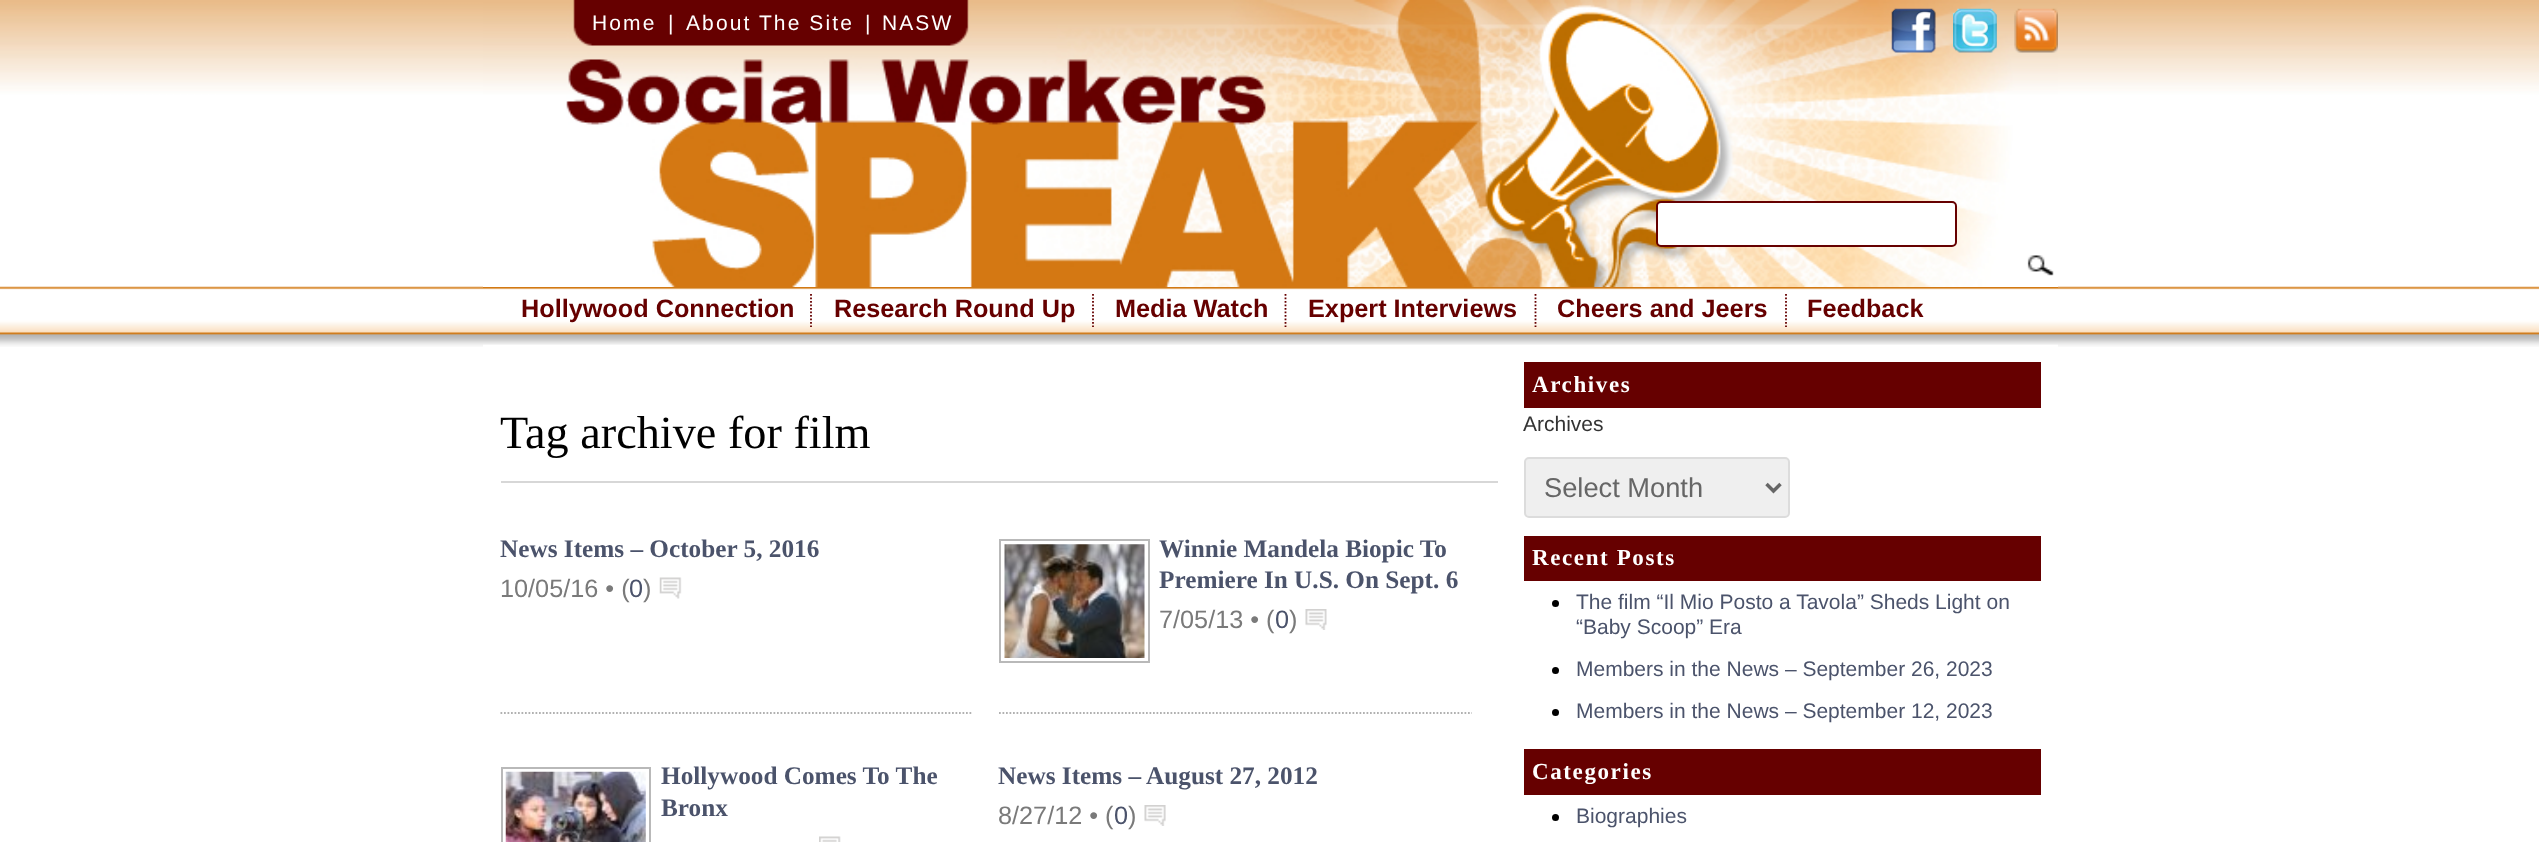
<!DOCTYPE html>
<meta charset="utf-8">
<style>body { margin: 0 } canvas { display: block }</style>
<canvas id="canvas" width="2539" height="842"></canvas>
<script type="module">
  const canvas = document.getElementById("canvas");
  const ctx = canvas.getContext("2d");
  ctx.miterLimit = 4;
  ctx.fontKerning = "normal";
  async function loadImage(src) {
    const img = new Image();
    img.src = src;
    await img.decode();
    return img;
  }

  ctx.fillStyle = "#ffffff";
  ctx.fillRect(0, 0, 2539, 842);
  ctx.drawImage(await loadImage("img1.png"), 0, 0, 2539, 347);
  ctx.fillRect(483, 344, 1575, 3);
  ctx.drawImage(await loadImage("img2.png"), 483, 0, 1575, 287);
  ctx.letterSpacing = "2.1px";
  ctx.font = "21px Liberation Sans";
  ctx.fillText("Home", 592, 30);
  ctx.letterSpacing = "0px";
  ctx.fillText("|", 668, 30);
  ctx.letterSpacing = "2.1px";
  ctx.fillText("About The Site", 686, 30);
  ctx.letterSpacing = "0px";
  ctx.fillText("|", 865, 30);
  ctx.letterSpacing = "2.1px";
  ctx.fillText("NASW", 882, 30);
  ctx.drawImage(await loadImage("img3.png"), 1891, 8, 45, 45);
  ctx.drawImage(await loadImage("img4.png"), 1953, 8, 44, 45);
  ctx.drawImage(await loadImage("img5.png"), 2014, 8, 44, 45);
  ctx.beginPath();
  ctx.roundRect(1657, 202, 299, 44, 4);
  ctx.fill();
  ctx.strokeStyle = "#660000";
  ctx.lineWidth = 2;
  ctx.stroke();
  ctx.drawImage(await loadImage("img6.png"), 2027, 255, 27, 21);
  ctx.drawImage(await loadImage("img7.png"), 483, 287, 1575, 58);
  ctx.beginPath();
  ctx.moveTo(811, 294);
  ctx.lineTo(811, 327);
  ctx.lineWidth = 1.8;
  ctx.setLineDash([1.75, 1.75]);
  ctx.stroke();
  ctx.letterSpacing = "0px";
  ctx.font = "bold 25.25px Liberation Sans";
  ctx.fillStyle = "#660000";
  ctx.fillText("Hollywood Connection", 521, 317);
  ctx.beginPath();
  ctx.moveTo(1093, 294);
  ctx.lineTo(1093, 327);
  ctx.stroke();
  ctx.fillText("Research Round Up", 834, 317);
  ctx.beginPath();
  ctx.moveTo(1285.5, 294);
  ctx.lineTo(1285.5, 327);
  ctx.stroke();
  ctx.fillText("Media Watch", 1115, 317);
  ctx.beginPath();
  ctx.moveTo(1535.5, 294);
  ctx.lineTo(1535.5, 327);
  ctx.stroke();
  ctx.fillText("Expert Interviews", 1308, 317);
  ctx.beginPath();
  ctx.moveTo(1786, 294);
  ctx.lineTo(1786, 327);
  ctx.stroke();
  ctx.fillText("Cheers and Jeers", 1557, 317);
  ctx.fillText("Feedback", 1807, 317);
  ctx.fillStyle = "#d7d7d7";
  ctx.fillRect(501, 481, 997, 2);
  ctx.font = "46.25px Liberation Serif";
  ctx.fillStyle = "#000000";
  ctx.fillText("Tag archive for film", 500, 448);
  ctx.beginPath();
  ctx.moveTo(500.5, 713);
  ctx.lineTo(973, 713);
  ctx.strokeStyle = "#b1b1b1";
  ctx.stroke();
  ctx.font = "bold 25.25px Liberation Serif";
  ctx.fillStyle = "#4b536b";
  ctx.fillText("News Items – October 5, 2016", 500, 557);
  ctx.font = "25.25px Liberation Sans";
  ctx.fillStyle = "#7a7a7a";
  ctx.fillText("10/05/16 • (", 500, 597);
  ctx.fillStyle = "#4b536b";
  ctx.fillText("0", 629, 597);
  ctx.fillStyle = "#7a7a7a";
  ctx.fillText(")", 643, 597);
  ctx.drawImage(await loadImage("img8.png"), 659, 577, 23, 22);
  ctx.beginPath();
  ctx.moveTo(999, 713);
  ctx.lineTo(1472, 713);
  ctx.stroke();
  ctx.strokeStyle = "#b9b9b9";
  ctx.lineWidth = 2;
  ctx.setLineDash([]);
  ctx.strokeRect(1000, 540, 149, 122);
  ctx.drawImage(await loadImage("img9.png"), 1004, 544, 141, 114);
  ctx.font = "bold 25.25px Liberation Serif";
  ctx.fillStyle = "#4b536b";
  ctx.fillText("Winnie Mandela Biopic To", 1159, 557);
  ctx.fillText("Premiere In U.S. On Sept. 6", 1159, 588);
  ctx.font = "25.25px Liberation Sans";
  ctx.fillStyle = "#7a7a7a";
  ctx.fillText("7/05/13 • (", 1159, 628);
  ctx.fillStyle = "#4b536b";
  ctx.fillText("0", 1275, 628);
  ctx.fillStyle = "#7a7a7a";
  ctx.fillText(")", 1289, 628);
  ctx.drawImage(await loadImage("img10.png"), 1305, 609, 22, 21);
  ctx.strokeRect(502, 768, 148, 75);
  ctx.drawImage(await loadImage("img11.png"), 505, 771, 141, 71);
  ctx.font = "bold 25.25px Liberation Serif";
  ctx.fillStyle = "#4b536b";
  ctx.fillText("Hollywood Comes To The", 661, 784);
  ctx.fillText("Bronx", 661, 816);
  ctx.drawImage(await loadImage("img12.png"), 819, 836, 22, 6);
  ctx.fillText("News Items – August 27, 2012", 998, 784);
  ctx.font = "25.25px Liberation Sans";
  ctx.fillStyle = "#7a7a7a";
  ctx.fillText("8/27/12 • (", 998, 824);
  ctx.fillStyle = "#4b536b";
  ctx.fillText("0", 1114, 824);
  ctx.fillStyle = "#7a7a7a";
  ctx.fillText(")", 1128, 824);
  ctx.drawImage(await loadImage("img13.png"), 1144, 805, 22, 21);
  ctx.fillStyle = "#660000";
  ctx.fillRect(1524, 362, 517, 46);
  ctx.letterSpacing = "1.6px";
  ctx.font = "bold 23px Liberation Serif";
  ctx.fillStyle = "#ffffff";
  ctx.fillText("Archives", 1532, 392);
  ctx.letterSpacing = "0px";
  ctx.font = "21px Liberation Sans";
  ctx.fillStyle = "#333333";
  ctx.fillText("Archives", 1523, 431);
  ctx.fillStyle = "#efefef";
  ctx.beginPath();
  ctx.roundRect(1525, 458, 264, 59, 4);
  ctx.fill();
  ctx.strokeStyle = "#dcdcdc";
  ctx.stroke();
  ctx.beginPath();
  ctx.moveTo(1766.5, 484);
  ctx.lineTo(1773.5, 491);
  ctx.lineTo(1780.5, 484);
  ctx.strokeStyle = "#666666";
  ctx.lineWidth = 3.5;
  ctx.stroke();
  ctx.font = "27.25px Liberation Sans";
  ctx.fillStyle = "#666666";
  ctx.fillText("Select Month", 1544, 497);
  ctx.fillStyle = "#660000";
  ctx.fillRect(1524, 536, 517, 45);
  ctx.letterSpacing = "1.6px";
  ctx.font = "bold 23px Liberation Serif";
  ctx.fillStyle = "#ffffff";
  ctx.fillText("Recent Posts", 1532, 565);
  ctx.fillStyle = "#000000";
  ctx.beginPath();
  ctx.arc(1555.5, 603.5, 3.5, 0, Math.PI * 2);
  ctx.fill();
  ctx.letterSpacing = "0px";
  ctx.font = "21px Liberation Sans";
  ctx.fillStyle = "#4b536b";
  ctx.fillText("The film “Il Mio Posto a Tavola” Sheds Light on", 1576, 609);
  ctx.fillText("“Baby Scoop” Era", 1576, 634);
  ctx.fillStyle = "#000000";
  ctx.beginPath();
  ctx.arc(1555.5, 670.5, 3.5, 0, Math.PI * 2);
  ctx.fill();
  ctx.fillStyle = "#4b536b";
  ctx.fillText("Members in the News – September 26, 2023", 1576, 676);
  ctx.fillStyle = "#000000";
  ctx.beginPath();
  ctx.arc(1555.5, 712.5, 3.5, 0, Math.PI * 2);
  ctx.fill();
  ctx.fillStyle = "#4b536b";
  ctx.fillText("Members in the News – September 12, 2023", 1576, 718);
  ctx.fillStyle = "#660000";
  ctx.fillRect(1524, 749, 517, 46);
  ctx.letterSpacing = "1.6px";
  ctx.font = "bold 23px Liberation Serif";
  ctx.fillStyle = "#ffffff";
  ctx.fillText("Categories", 1532, 779);
  ctx.fillStyle = "#000000";
  ctx.beginPath();
  ctx.arc(1555.5, 817.5, 3.5, 0, Math.PI * 2);
  ctx.fill();
  ctx.letterSpacing = "0px";
  ctx.font = "21px Liberation Sans";
  ctx.fillStyle = "#4b536b";
  ctx.fillText("Biographies", 1576, 823);
</script>
